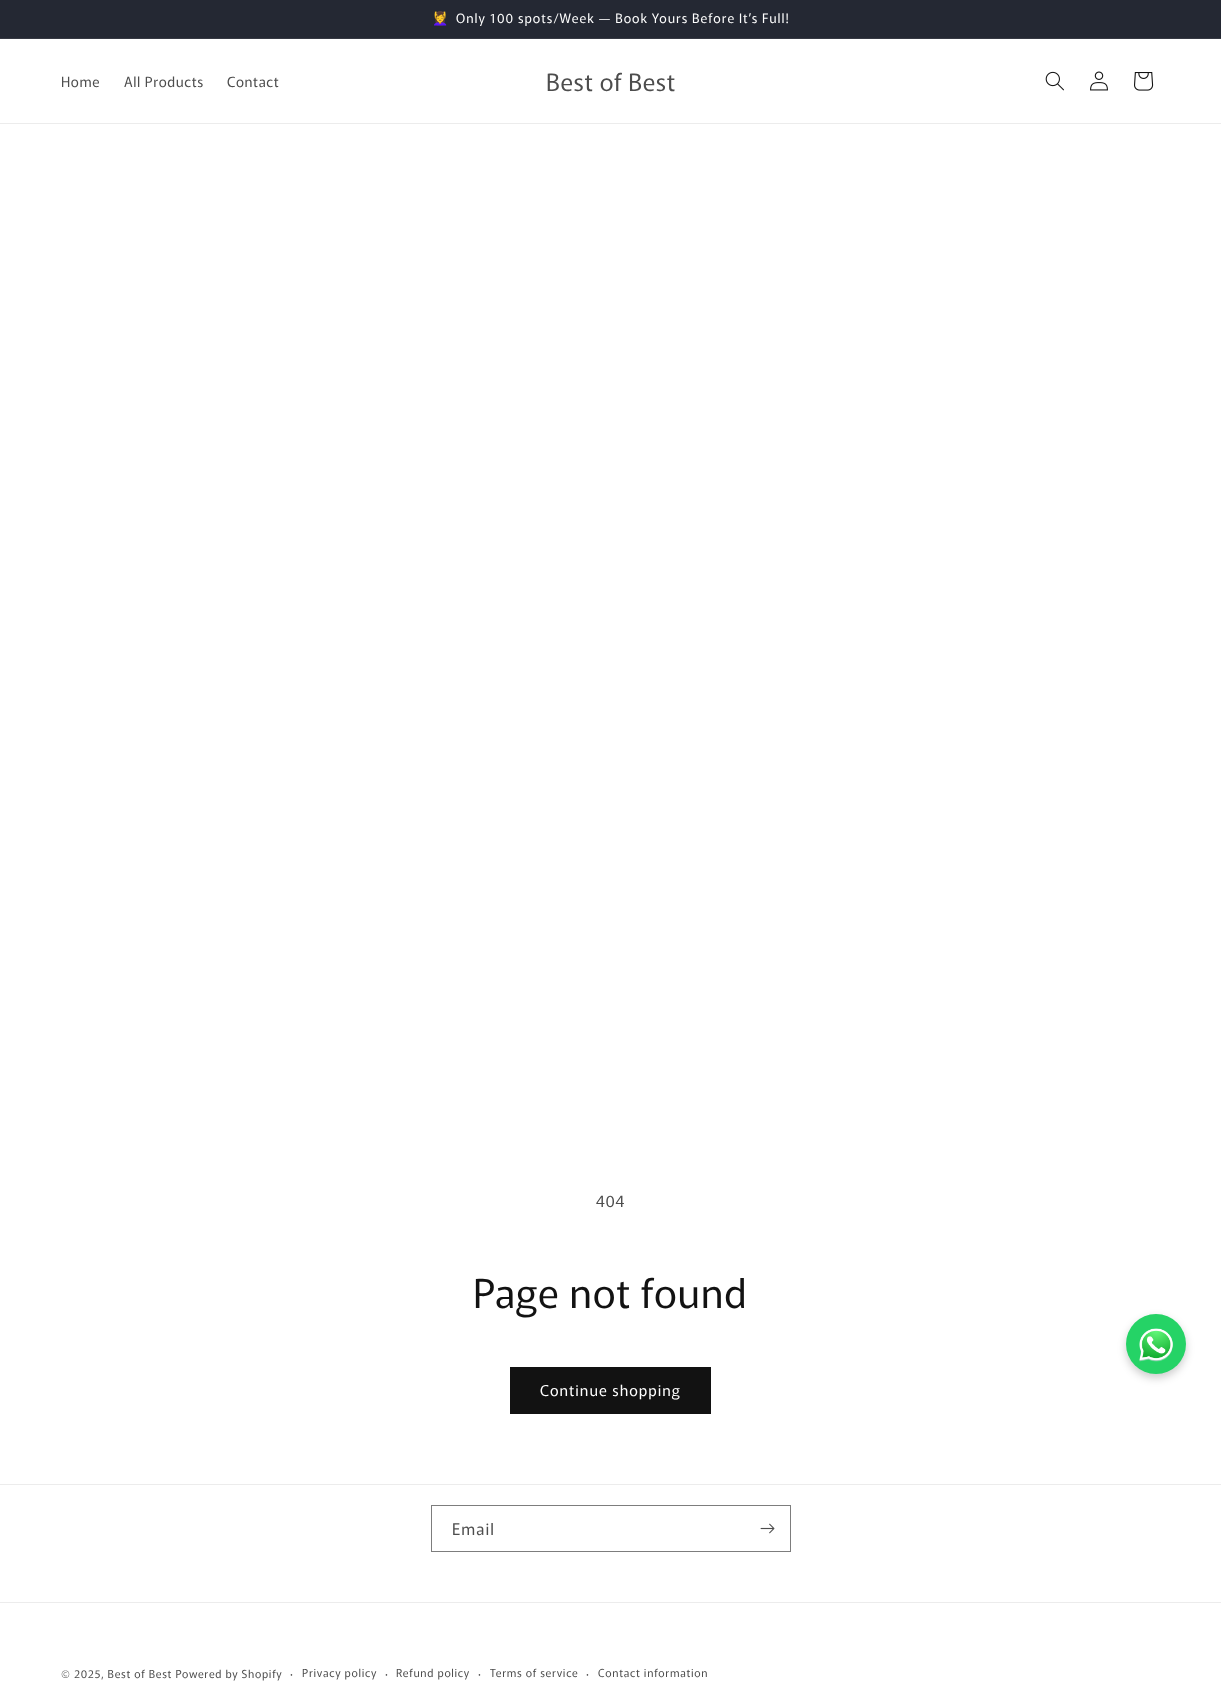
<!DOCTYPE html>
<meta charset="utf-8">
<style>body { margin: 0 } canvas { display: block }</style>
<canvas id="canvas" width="1221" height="1683"></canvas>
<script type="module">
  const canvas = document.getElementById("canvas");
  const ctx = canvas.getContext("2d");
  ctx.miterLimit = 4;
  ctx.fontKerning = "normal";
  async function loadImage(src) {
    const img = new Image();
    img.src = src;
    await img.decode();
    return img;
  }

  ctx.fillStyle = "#ffffff";
  ctx.fillRect(0, 0, 1221, 1683);
  ctx.fillStyle = "#242833";
  ctx.fillRect(0, 0, 1221, 38);
  ctx.fillStyle = "#363943";
  ctx.fillRect(0, 38, 1221, 1);
  ctx.letterSpacing = "1px";
  ctx.font = "13px Noto Color Emoji";
  ctx.fillStyle = "#ffffff";
  ctx.fillText("💆‍♀️", 432, 23);
  ctx.wordSpacing = "-0.25px";
  ctx.font = "13px Murecho";
  ctx.fillText("Only 100 spots/Week — Book Yours Before It’s Full!", 456, 23);
  ctx.fillStyle = "#ececec";
  ctx.fillRect(0, 123, 1221, 1);
  ctx.letterSpacing = "0.6px";
  ctx.wordSpacing = "0px";
  ctx.font = "14px Murecho";
  ctx.fillStyle = "#4d4d4d";
  ctx.fillText("Home", 61, 87);
  ctx.fillText("All Products", 124, 87);
  ctx.fillText("Contact", 227, 87);
  ctx.font = "24px Murecho";
  ctx.fillText("Best of Best", 546, 91);
  ctx.drawImage(await loadImage("img1.png"), 1045, 71, 19, 20);
  ctx.drawImage(await loadImage("img2.png"), 1090, 71, 18, 20);
  ctx.drawImage(await loadImage("img3.png"), 1134, 72, 20, 19);
  ctx.font = "16px Murecho";
  ctx.fillText("404", 596, 1207);
  ctx.font = "40px Murecho";
  ctx.fillStyle = "#121212";
  ctx.fillText("Page not found", 473, 1308);
  ctx.fillRect(510, 1367, 201, 47);
  ctx.letterSpacing = "1px";
  ctx.font = "15px Murecho";
  ctx.fillStyle = "#ffffff";
  ctx.fillText("Continue shopping", 540, 1396);
  ctx.fillStyle = "rgba(0, 0, 0, 0.2)";
  ctx.filter = "blur(4px)";
  ctx.beginPath();
  ctx.roundRect(1126, 1318, 60, 60, 30);
  ctx.fill();
  ctx.filter = "none";
  ctx.fillStyle = "#25d366";
  ctx.beginPath();
  ctx.arc(1156, 1344, 30, 0, Math.PI * 2);
  ctx.fill();
  ctx.drawImage(await loadImage("img4.png"), 1139, 1328, 34, 34);
  ctx.fillStyle = "#ececec";
  ctx.fillRect(0, 1484, 1221, 1);
  ctx.strokeStyle = "#7d7d7d";
  ctx.strokeRect(431.5, 1505.5, 359, 46);
  ctx.font = "16px Murecho";
  ctx.fillStyle = "#4d4d4d";
  ctx.fillText("Email", 452, 1535);
  ctx.drawImage(await loadImage("img5.png"), 760, 1523, 15, 11);
  ctx.fillStyle = "#ececec";
  ctx.fillRect(0, 1602, 1221, 1);
  ctx.letterSpacing = "0.7px";
  ctx.font = "11px Murecho";
  ctx.fillStyle = "#4d4d4d";
  ctx.fillText("© 2025, Best of Best Powered by Shopify", 61, 1678);
  ctx.font = "12px Murecho";
  ctx.fillText("·", 290, 1678);
  ctx.font = "11px Murecho";
  ctx.fillText("Privacy policy", 302, 1677);
  ctx.font = "12px Murecho";
  ctx.fillText("·", 385, 1678);
  ctx.font = "11px Murecho";
  ctx.fillText("Refund policy", 396, 1677);
  ctx.font = "12px Murecho";
  ctx.fillText("·", 478, 1678);
  ctx.font = "11px Murecho";
  ctx.fillText("Terms of service", 490, 1677);
  ctx.font = "12px Murecho";
  ctx.fillText("·", 586, 1678);
  ctx.font = "11px Murecho";
  ctx.fillText("Contact information", 598, 1677);
</script>
